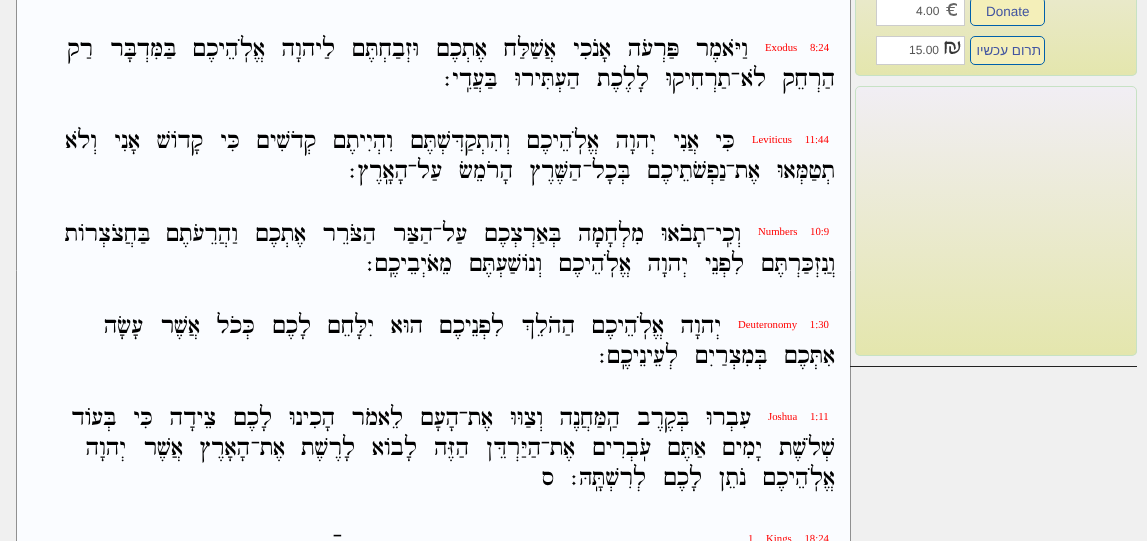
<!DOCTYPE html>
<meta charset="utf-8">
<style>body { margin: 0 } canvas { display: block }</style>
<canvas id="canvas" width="1147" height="541"></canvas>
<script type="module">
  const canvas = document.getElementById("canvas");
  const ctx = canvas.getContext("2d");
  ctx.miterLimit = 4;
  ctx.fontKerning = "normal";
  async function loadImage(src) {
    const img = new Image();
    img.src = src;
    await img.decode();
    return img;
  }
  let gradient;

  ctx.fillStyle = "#f0f0f0";
  ctx.fillRect(0, 0, 1147, 541);
  ctx.fillStyle = "#fafcff";
  ctx.beginPath();
  ctx.rect(16.5, -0.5, 834, 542);
  ctx.fill();
  ctx.strokeStyle = "#909090";
  ctx.stroke();
  ctx.fillStyle = "#222222";
  ctx.fillRect(850, 366, 287, 1);
  ctx.save();
  ctx.beginPath();
  ctx.roundRect(855, -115, 282, 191, 5);
  ctx.clip();
  gradient = ctx.createLinearGradient(856, -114, 856, 75);
  gradient.addColorStop(0, "#f1eef4");
  gradient.addColorStop(1, "#e4e6ad");
  ctx.fillStyle = gradient;
  ctx.fillRect(855, 0, 282, 75);
  ctx.restore();
  ctx.beginPath();
  ctx.roundRect(855.5, -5.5, 281, 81, 4.5);
  ctx.strokeStyle = "#c7e2c4";
  ctx.stroke();
  ctx.fillStyle = "#f4efb9";
  ctx.beginPath();
  ctx.roundRect(970.5, -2.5, 74, 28, 4.5);
  ctx.fill();
  ctx.strokeStyle = "#0060ab";
  ctx.stroke();
  ctx.font = "13.5px Liberation Sans";
  ctx.fillStyle = "#4255a0";
  ctx.fillText("Donate", 986, 16);
  ctx.fillStyle = "#ffffff";
  ctx.fillRect(877, 0, 87, 25);
  ctx.drawImage(await loadImage("img1.png"), 946, 3, 11, 13);
  ctx.strokeStyle = "#cccccc";
  ctx.strokeRect(876.5, -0.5, 88, 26);
  ctx.font = "12px Liberation Sans";
  ctx.fillStyle = "#555555";
  ctx.fillText("4.00", 916, 15);
  ctx.fillStyle = "#f4efb9";
  ctx.beginPath();
  ctx.roundRect(970.5, 36.5, 74, 28, 4.5);
  ctx.fill();
  ctx.strokeStyle = "#0060ab";
  ctx.stroke();
  ctx.direction = "rtl";
  ctx.font = "13.5px Liberation Sans";
  ctx.fillStyle = "#4255a0";
  ctx.fillText("תרום עכשיו", 1041, 55);
  ctx.fillStyle = "#ffffff";
  ctx.fillRect(877, 37, 87, 27);
  ctx.drawImage(await loadImage("img2.png"), 944, 40, 17, 15);
  ctx.strokeStyle = "#cccccc";
  ctx.strokeRect(876.5, 36.5, 88, 28);
  ctx.direction = "ltr";
  ctx.font = "12px Liberation Sans";
  ctx.fillStyle = "#555555";
  ctx.fillText("15.00", 909, 54);
  ctx.save();
  ctx.beginPath();
  ctx.roundRect(855, 86, 282, 270, 5);
  ctx.clip();
  gradient = ctx.createLinearGradient(856, 87, 856, 355);
  gradient.addColorStop(0, "#f1eef4");
  gradient.addColorStop(1, "#e4e6ad");
  ctx.fillStyle = gradient;
  ctx.fillRect(855, 87, 282, 268);
  ctx.restore();
  ctx.beginPath();
  ctx.roundRect(855.5, 86.5, 281, 269, 4.5);
  ctx.strokeStyle = "#c7e2c4";
  ctx.stroke();
  ctx.wordSpacing = "10px";
  ctx.font = "10.75px Liberation Serif";
  ctx.fillStyle = "#ff0000";
  ctx.fillText("Exodus 8:24", 765, 51);
  ctx.wordSpacing = "0px";
  ctx.direction = "rtl";
  ctx.font = "20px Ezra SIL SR";
  ctx.fillStyle = "#000000";
  ctx.fillText("וַיֹּאמֶר", 748, 56);
  ctx.fillText("פַּרְעֹה", 679, 56);
  ctx.fillText("אָנֹכִי", 611, 56);
  ctx.fillText("אֲשַׁלַּח", 556, 56);
  ctx.fillText("אֶתְכֶם", 487, 56);
  ctx.fillText("וּזְבַחְתֶּם", 419, 56);
  ctx.fillText("לַיהוָה", 335, 56);
  ctx.fillText("אֱלֹֽהֵיכֶם", 265, 56);
  ctx.fillText("בַּמִּדְבָּר", 176, 56);
  ctx.fillText("רַק", 93, 56);
  ctx.fillText("הַרְחֵק", 835, 86);
  ctx.fillText("לֹא", 766, 86);
  ctx.fillText("־", 740, 86);
  ctx.fillText("תַרְחִיקוּ", 731, 86);
  ctx.fillText("לָלֶכֶת", 649, 86);
  ctx.fillText("הַעְתִּירוּ", 580, 86);
  ctx.fillText("בַּעֲדִֽי׃", 497, 86);
  ctx.wordSpacing = "10px";
  ctx.direction = "ltr";
  ctx.font = "10.75px Liberation Serif";
  ctx.fillStyle = "#ff0000";
  ctx.fillText("Leviticus 11:44", 752, 143);
  ctx.wordSpacing = "0px";
  ctx.direction = "rtl";
  ctx.font = "20px Ezra SIL SR";
  ctx.fillStyle = "#000000";
  ctx.fillText("כִּי", 735, 148);
  ctx.fillText("אֲנִי", 699, 148);
  ctx.fillText("יְהוָה", 656, 148);
  ctx.fillText("אֱלֹֽהֵיכֶם", 599, 148);
  ctx.fillText("וְהִתְקַדִּשְׁתֶּם", 510, 148);
  ctx.fillText("וִהְיִיתֶם", 393, 148);
  ctx.fillText("קְדֹשִׁים", 316, 148);
  ctx.fillText("כִּי", 240, 148);
  ctx.fillText("קָדֹושׁ", 203, 148);
  ctx.fillText("אָנִי", 140, 148);
  ctx.fillText("וְלֹא", 97, 148);
  ctx.fillText("תְטַמְּאוּ", 835, 178);
  ctx.fillText("אֶת", 760, 178);
  ctx.fillText("־", 735, 178);
  ctx.fillText("נַפְשֹׁתֵיכֶם", 726, 178);
  ctx.fillText("בְּכָל", 630, 178);
  ctx.fillText("־", 592, 178);
  ctx.fillText("הַשֶּׁרֶץ", 582, 178);
  ctx.fillText("הָרֹמֵשׂ", 513, 178);
  ctx.fillText("עַל", 442, 178);
  ctx.fillText("־", 417, 178);
  ctx.fillText("הָאָֽרֶץ׃", 408, 178);
  ctx.wordSpacing = "10px";
  ctx.direction = "ltr";
  ctx.font = "10.75px Liberation Serif";
  ctx.fillStyle = "#ff0000";
  ctx.fillText("Numbers 10:9", 758, 235);
  ctx.wordSpacing = "0px";
  ctx.direction = "rtl";
  ctx.font = "20px Ezra SIL SR";
  ctx.fillStyle = "#000000";
  ctx.fillText("וְכִֽי", 741, 241);
  ctx.fillText("־", 715, 241);
  ctx.fillText("תָבֹאוּ", 706, 241);
  ctx.fillText("מִלְחָמָה", 644, 241);
  ctx.fillText("בְּאַרְצְכֶם", 561, 241);
  ctx.fillText("עַל", 467, 241);
  ctx.fillText("־", 442, 241);
  ctx.fillText("הַצַּר", 433, 241);
  ctx.fillText("הַצֹּרֵר", 376, 241);
  ctx.fillText("אֶתְכֶם", 306, 241);
  ctx.fillText("וַהֲרֵעֹתֶם", 238, 241);
  ctx.fillText("בַּחֲצֹצְרֹות", 150, 241);
  ctx.fillText("וֲנִזְכַּרְתֶּם", 835, 271);
  ctx.fillText("לִפְנֵי", 744, 271);
  ctx.fillText("יְהוָה", 688, 271);
  ctx.fillText("אֱלֹֽהֵיכֶם", 631, 271);
  ctx.fillText("וְנֹושַׁעְתֶּם", 542, 271);
  ctx.fillText("מֵאֹיְבֵיכֶֽם׃", 452, 271);
  ctx.wordSpacing = "10px";
  ctx.direction = "ltr";
  ctx.font = "10.75px Liberation Serif";
  ctx.fillStyle = "#ff0000";
  ctx.fillText("Deuteronomy 1:30", 738, 328);
  ctx.wordSpacing = "0px";
  ctx.direction = "rtl";
  ctx.font = "20px Ezra SIL SR";
  ctx.fillStyle = "#000000";
  ctx.fillText("יְהוָה", 721, 333);
  ctx.fillText("אֱלֹֽהֵיכֶם", 664, 333);
  ctx.fillText("הַהֹלֵךְ", 575, 333);
  ctx.fillText("לִפְנֵיכֶם", 504, 333);
  ctx.fillText("הוּא", 423, 333);
  ctx.fillText("יִלָּחֵם", 374, 333);
  ctx.fillText("לָכֶם", 311, 333);
  ctx.fillText("כְּכֹל", 255, 333);
  ctx.fillText("אֲשֶׁר", 200, 333);
  ctx.fillText("עָשָׂה", 143, 333);
  ctx.fillText("אִתְּכֶם", 835, 363);
  ctx.fillText("בְּמִצְרַיִם", 767, 363);
  ctx.fillText("לְעֵינֵיכֶֽם׃", 678, 363);
  ctx.wordSpacing = "10px";
  ctx.direction = "ltr";
  ctx.font = "10.75px Liberation Serif";
  ctx.fillStyle = "#ff0000";
  ctx.fillText("Joshua 1:11", 768, 420);
  ctx.wordSpacing = "0px";
  ctx.direction = "rtl";
  ctx.font = "20px Ezra SIL SR";
  ctx.fillStyle = "#000000";
  ctx.fillText("עִבְרוּ", 751, 425);
  ctx.fillText("בְּקֶרֶב", 689, 425);
  ctx.fillText("הַֽמַּחֲנֶה", 620, 425);
  ctx.fillText("וְצַוּוּ", 543, 425);
  ctx.fillText("אֶת", 493, 425);
  ctx.fillText("־", 468, 425);
  ctx.fillText("הָעָם", 459, 425);
  ctx.fillText("לֵאמֹר", 403, 425);
  ctx.fillText("הָכִינוּ", 335, 425);
  ctx.fillText("לָכֶם", 272, 425);
  ctx.fillText("צֵידָה", 216, 425);
  ctx.fillText("כִּי", 153, 425);
  ctx.fillText("בְּעֹוד", 116, 425);
  ctx.fillText("שְׁלֹשֶׁת", 835, 455);
  ctx.fillText("יָמִים", 762, 455);
  ctx.fillText("אַתֶּם", 706, 455);
  ctx.fillText("עֹֽבְרִים", 651, 455);
  ctx.fillText("אֶת", 575, 455);
  ctx.fillText("־", 550, 455);
  ctx.fillText("הַיַּרְדֵּן", 541, 455);
  ctx.fillText("הַזֶּה", 469, 455);
  ctx.fillText("לָבֹוא", 417, 455);
  ctx.fillText("לָרֶשֶׁת", 355, 455);
  ctx.fillText("אֶת", 285, 455);
  ctx.fillText("־", 260, 455);
  ctx.fillText("הָאָרֶץ", 250, 455);
  ctx.fillText("אֲשֶׁר", 183, 455);
  ctx.fillText("יְהוָה", 126, 455);
  ctx.fillText("אֱלֹֽהֵיכֶם", 835, 485);
  ctx.fillText("נֹתֵן", 746, 485);
  ctx.fillText("לָכֶם", 702, 485);
  ctx.fillText("לְרִשְׁתָּֽהּ׃", 646, 485);
  ctx.fillText("ס", 554, 485);
  ctx.wordSpacing = "10px";
  ctx.direction = "ltr";
  ctx.font = "10.75px Liberation Serif";
  ctx.fillStyle = "#ff0000";
  ctx.fillText("1 Kings 18:24", 748, 542);
  ctx.wordSpacing = "0px";
  ctx.direction = "rtl";
  ctx.font = "20px Ezra SIL SR";
  ctx.fillStyle = "#000000";
  ctx.fillText("־", 342, 548);
</script>
